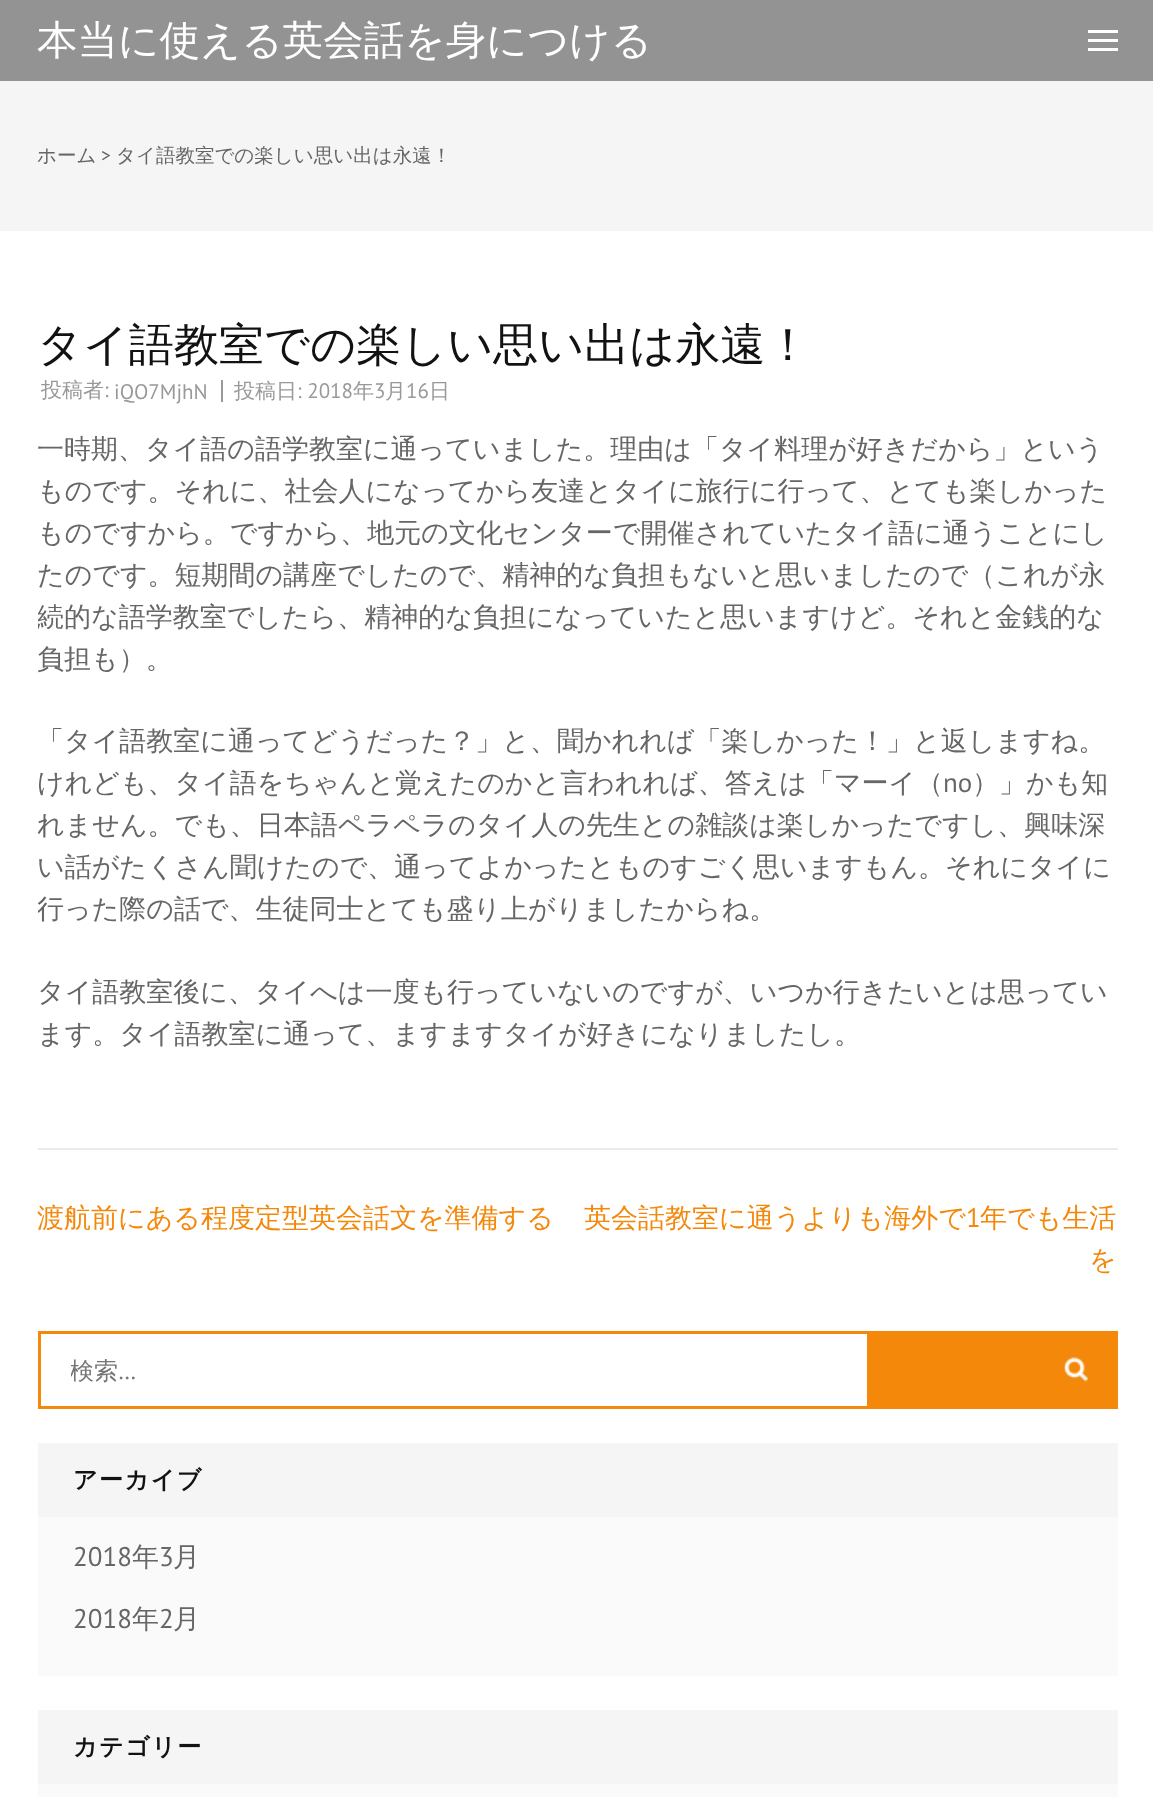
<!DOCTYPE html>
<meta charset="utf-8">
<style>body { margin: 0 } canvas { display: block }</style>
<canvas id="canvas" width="1153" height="1797"></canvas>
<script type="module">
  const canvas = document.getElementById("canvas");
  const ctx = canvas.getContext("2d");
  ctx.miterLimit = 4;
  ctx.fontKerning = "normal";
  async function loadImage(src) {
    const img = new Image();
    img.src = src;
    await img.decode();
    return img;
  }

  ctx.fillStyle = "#ffffff";
  ctx.fillRect(0, 0, 1153, 1797);
  ctx.fillStyle = "#939393";
  ctx.fillRect(0, 0, 1153, 81);
  ctx.font = "500 40.5px WenQuanYi Zen Hei";
  ctx.fillStyle = "#ffffff";
  ctx.fillText("本当に使える英会話を身につける", 37, 54);
  ctx.fillRect(1088, 30, 30, 3);
  ctx.fillRect(1088, 39, 30, 3);
  ctx.fillRect(1088, 48, 30, 3);
  ctx.fillStyle = "#f5f5f5";
  ctx.fillRect(0, 81, 1153, 150);
  ctx.font = "500 19.5px WenQuanYi Zen Hei";
  ctx.fillStyle = "#666666";
  ctx.fillText("ホーム", 37, 162);
  ctx.font = "19.5px PT Sans";
  ctx.fillText(">", 101, 162);
  ctx.font = "500 19.5px WenQuanYi Zen Hei";
  ctx.fillText("タイ語教室での楽しい思い出は永遠！", 116, 162);
  ctx.fillStyle = "#ebebeb";
  ctx.fillRect(38, 1148, 1080, 2);
  ctx.font = "500 45px WenQuanYi Zen Hei";
  ctx.fillStyle = "#121212";
  ctx.fillText("タイ語教室での楽しい思い出は永遠！", 37, 360);
  ctx.fillStyle = "#999999";
  ctx.fillRect(221, 380, 2, 22);
  ctx.font = "500 21px WenQuanYi Zen Hei";
  ctx.fillText("投稿者", 41, 397);
  ctx.font = "21px PT Sans";
  ctx.fillText(":", 104, 397);
  ctx.fillText("iQO7MjhN", 114, 399);
  ctx.font = "500 21px WenQuanYi Zen Hei";
  ctx.fillText("投稿日", 234, 398);
  ctx.font = "21px PT Sans";
  ctx.fillText(": 2018", 297, 398);
  ctx.font = "500 21px WenQuanYi Zen Hei";
  ctx.fillText("年", 353, 398);
  ctx.font = "21px PT Sans";
  ctx.fillText("3", 374, 398);
  ctx.font = "500 21px WenQuanYi Zen Hei";
  ctx.fillText("月", 385, 398);
  ctx.font = "21px PT Sans";
  ctx.fillText("16", 406, 398);
  ctx.font = "500 21px WenQuanYi Zen Hei";
  ctx.fillText("日", 429, 398);
  ctx.font = "500 27px WenQuanYi Zen Hei";
  ctx.fillStyle = "#666666";
  ctx.fillText("一時期、タイ語の語学教室に通っていました。理由は「タイ料理が好きだから」という", 37, 458);
  ctx.fillText("ものです。それに、社会人になってから友達とタイに旅行に行って、とても楽しかった", 37, 500);
  ctx.fillText("ものですから。ですから、地元の文化センターで開催されていたタイ語に通うことにし", 37, 542);
  ctx.fillText("たのです。短期間の講座でしたので、精神的な負担もないと思いましたので（これが永", 37, 584);
  ctx.save();
  ctx.beginPath();
  ctx.rect(38, 317, 1080, 831);
  ctx.clip();
  ctx.fillText("続的な語学教室でしたら、精神的な負担になっていたと思いますけど。それと金銭的な", 37, 626);
  ctx.restore();
  ctx.fillText("負担も）。", 37, 668);
  ctx.fillText("「タイ語教室に通ってどうだった？」と、聞かれれば「楽しかった！」と返しますね。", 37, 750);
  ctx.fillText("けれども、タイ語をちゃんと覚えたのかと言われれば、答えは「マーイ（", 37, 792);
  ctx.font = "27px PT Sans";
  ctx.fillText("no", 943, 792);
  ctx.font = "500 27px WenQuanYi Zen Hei";
  ctx.fillText("）」かも知", 972, 792);
  ctx.fillText("れません。でも、日本語ペラペラのタイ人の先生との雑談は楽しかったですし、興味深", 37, 834);
  ctx.fillText("い話がたくさん聞けたので、通ってよかったとものすごく思いますもん。それにタイに", 37, 876);
  ctx.save();
  ctx.beginPath();
  ctx.rect(38, 317, 1080, 831);
  ctx.clip();
  ctx.fillText("行った際の話で、生徒同士とても盛り上がりましたからね。", 37, 918);
  ctx.restore();
  ctx.fillText("タイ語教室後に、タイへは一度も行っていないのですが、いつか行きたいとは思ってい", 37, 1001);
  ctx.fillText("ます。タイ語教室に通って、ますますタイが好きになりましたし。", 37, 1043);
  ctx.fillStyle = "#f3880a";
  ctx.fillText("渡航前にある程度定型英会話文を準備する", 37, 1227);
  ctx.fillText("英会話教室に通うよりも海外で", 584, 1227);
  ctx.font = "27px PT Sans";
  ctx.fillText("1", 966, 1227);
  ctx.font = "500 27px WenQuanYi Zen Hei";
  ctx.fillText("年でも生活", 980, 1227);
  ctx.fillText("を", 1089, 1269);
  ctx.fillRect(38, 1331, 1080, 78);
  ctx.fillStyle = "#ffffff";
  ctx.fillRect(41, 1334, 826, 72);
  ctx.save();
  ctx.beginPath();
  ctx.rect(71, 1355, 775, 33);
  ctx.clip();
  ctx.font = "500 24px WenQuanYi Zen Hei";
  ctx.fillStyle = "#757575";
  ctx.fillText("検索", 70, 1379);
  ctx.restore();
  ctx.font = "24px PT Sans";
  ctx.fillStyle = "#757575";
  ctx.fillText("…", 118, 1379);
  ctx.drawImage(await loadImage("img1.png"), 1063, 1357, 25, 25);
  ctx.fillStyle = "#fafafa";
  ctx.fillRect(38, 1517, 1080, 159);
  ctx.fillStyle = "#f5f5f5";
  ctx.fillRect(38, 1443, 1080, 74);
  ctx.letterSpacing = "1.5px";
  ctx.font = "bold 24px WenQuanYi Zen Hei";
  ctx.fillStyle = "#121212";
  ctx.fillText("アーカイブ", 73, 1488);
  ctx.letterSpacing = "0px";
  ctx.font = "27px PT Sans";
  ctx.fillStyle = "#666666";
  ctx.fillText("2018", 73, 1566);
  ctx.font = "500 27px WenQuanYi Zen Hei";
  ctx.fillText("年", 132, 1566);
  ctx.font = "27px PT Sans";
  ctx.fillText("3", 159, 1566);
  ctx.font = "500 27px WenQuanYi Zen Hei";
  ctx.fillText("月", 173, 1566);
  ctx.font = "27px PT Sans";
  ctx.fillText("2018", 73, 1628);
  ctx.font = "500 27px WenQuanYi Zen Hei";
  ctx.fillText("年", 132, 1628);
  ctx.font = "27px PT Sans";
  ctx.fillText("2", 159, 1628);
  ctx.font = "500 27px WenQuanYi Zen Hei";
  ctx.fillText("月", 173, 1628);
  ctx.fillStyle = "#fafafa";
  ctx.fillRect(38, 1784, 1080, 13);
  ctx.fillStyle = "#f5f5f5";
  ctx.fillRect(38, 1710, 1080, 74);
  ctx.letterSpacing = "1.5px";
  ctx.font = "bold 24px WenQuanYi Zen Hei";
  ctx.fillStyle = "#121212";
  ctx.fillText("カテゴリー", 73, 1755);
</script>
